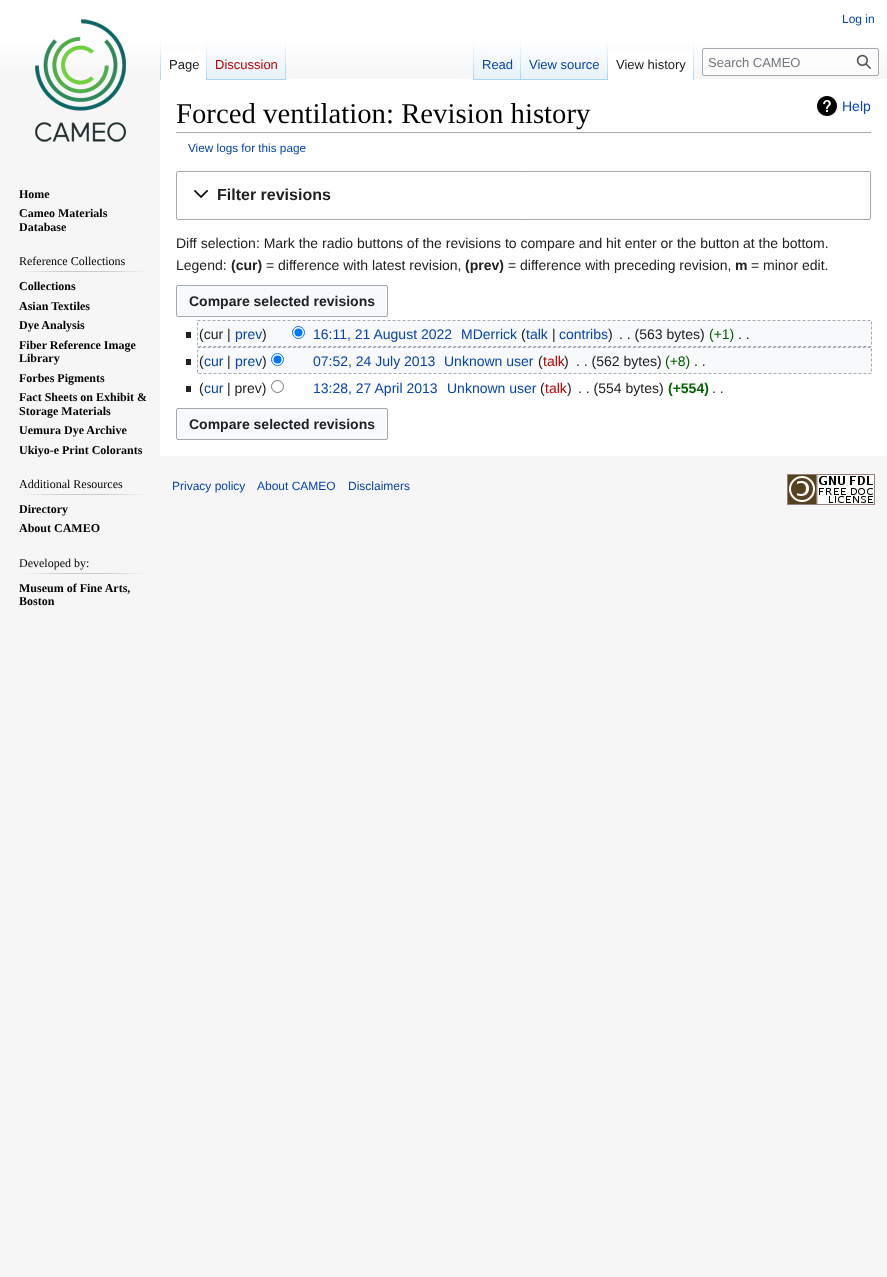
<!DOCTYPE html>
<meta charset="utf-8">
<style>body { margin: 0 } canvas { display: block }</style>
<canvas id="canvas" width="887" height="1277"></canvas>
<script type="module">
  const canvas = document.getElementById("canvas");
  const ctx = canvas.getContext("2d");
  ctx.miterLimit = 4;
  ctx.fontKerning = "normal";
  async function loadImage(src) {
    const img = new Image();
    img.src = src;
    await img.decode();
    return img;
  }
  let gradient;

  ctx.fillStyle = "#f6f6f6";
  ctx.fillRect(0, 0, 887, 1277);
  gradient = ctx.createLinearGradient(444, 0, 444, 80);
  gradient.addColorStop(0.5, "#ffffff");
  gradient.addColorStop(1, "#f6f6f6");
  ctx.fillStyle = gradient;
  ctx.fillRect(0, 0, 887, 69);
  ctx.font = "12px Liberation Sans";
  ctx.fillStyle = "#0645ad";
  ctx.fillText("Log in", 842, 23);
  ctx.fillStyle = "#ffffff";
  ctx.fillRect(160, 79, 727, 377);
  gradient = ctx.createLinearGradient(161, 40, 161, 80);
  gradient.addColorStop(0, "rgba(167, 215, 249, 0)");
  gradient.addColorStop(1, "#a7d7f9");
  ctx.fillStyle = gradient;
  ctx.fillRect(160, 40, 1, 40);
  ctx.fillStyle = "#ffffff";
  ctx.fillRect(161, 51, 45, 28);
  gradient = ctx.createLinearGradient(207, 40, 207, 80);
  gradient.addColorStop(0, "#ffffff");
  gradient.addColorStop(1, "#a7d7f9");
  ctx.fillStyle = gradient;
  ctx.fillRect(206, 40, 1, 40);
  ctx.font = "13px Liberation Sans";
  ctx.fillStyle = "#202122";
  ctx.fillText("Page", 169, 69);
  gradient = ctx.createLinearGradient(247, 80, 247, 40);
  gradient.addColorStop(0, "#77c1f6");
  gradient.addColorStop(0.03, "#e8f2f8");
  gradient.addColorStop(1, "#ffffff");
  ctx.fillStyle = gradient;
  ctx.fillRect(207, 46, 79, 34);
  gradient = ctx.createLinearGradient(286, 40, 286, 80);
  gradient.addColorStop(0, "rgba(167, 215, 249, 0)");
  gradient.addColorStop(1, "#a7d7f9");
  ctx.fillStyle = gradient;
  ctx.fillRect(285, 40, 1, 40);
  ctx.fillStyle = "#ba0000";
  ctx.fillText("Discussion", 215, 69);
  gradient = ctx.createLinearGradient(474, 40, 474, 80);
  gradient.addColorStop(0, "rgba(167, 215, 249, 0)");
  gradient.addColorStop(1, "#a7d7f9");
  ctx.fillStyle = gradient;
  ctx.fillRect(473, 40, 1, 40);
  gradient = ctx.createLinearGradient(498, 80, 498, 40);
  gradient.addColorStop(0, "#77c1f6");
  gradient.addColorStop(0.03, "#e8f2f8");
  gradient.addColorStop(1, "#ffffff");
  ctx.fillStyle = gradient;
  ctx.fillRect(474, 46, 47, 34);
  gradient = ctx.createLinearGradient(521, 40, 521, 80);
  gradient.addColorStop(0, "rgba(167, 215, 249, 0)");
  gradient.addColorStop(1, "#a7d7f9");
  ctx.fillStyle = gradient;
  ctx.fillRect(520, 40, 1, 40);
  ctx.fillStyle = "#0645ad";
  ctx.fillText("Read", 482, 69);
  gradient = ctx.createLinearGradient(565, 80, 565, 40);
  gradient.addColorStop(0, "#77c1f6");
  gradient.addColorStop(0.03, "#e8f2f8");
  gradient.addColorStop(1, "#ffffff");
  ctx.fillStyle = gradient;
  ctx.fillRect(521, 46, 87, 34);
  gradient = ctx.createLinearGradient(608, 40, 608, 80);
  gradient.addColorStop(0, "rgba(167, 215, 249, 0)");
  gradient.addColorStop(1, "#a7d7f9");
  ctx.fillStyle = gradient;
  ctx.fillRect(607, 40, 1, 40);
  ctx.fillStyle = "#0645ad";
  ctx.fillText("View source", 529, 69);
  ctx.fillStyle = "#ffffff";
  ctx.fillRect(608, 51, 85, 28);
  gradient = ctx.createLinearGradient(694, 40, 694, 80);
  gradient.addColorStop(0, "#ffffff");
  gradient.addColorStop(1, "#a7d7f9");
  ctx.fillStyle = gradient;
  ctx.fillRect(693, 40, 1, 40);
  ctx.fillStyle = "#202122";
  ctx.fillText("View history", 616, 69);
  ctx.fillStyle = "rgba(255, 255, 255, 0.5)";
  ctx.beginPath();
  ctx.roundRect(702.5, 48.5, 176, 27, 1.5);
  ctx.fill();
  ctx.strokeStyle = "#a2a9b1";
  ctx.stroke();
  ctx.fillStyle = "#72777d";
  ctx.fillText("Search CAMEO", 708, 67);
  ctx.drawImage(await loadImage("img1.png"), 856, 54, 15, 15);
  ctx.drawImage(await loadImage("img2.png"), 35, 19, 91, 123);
  ctx.font = "bold 12px Liberation Serif";
  ctx.fillStyle = "#000000";
  ctx.fillText("Home", 19, 198);
  ctx.fillText("Cameo Materials", 19, 217);
  ctx.fillText("Database", 19, 231);
  gradient = ctx.createLinearGradient(19, 272, 150, 272);
  gradient.addColorStop(0, "#f6f6f6");
  gradient.addColorStop(0.33, "#c8ccd1");
  gradient.addColorStop(0.66, "#c8ccd1");
  gradient.addColorStop(1, "#f6f6f6");
  ctx.fillStyle = gradient;
  ctx.fillRect(19, 271, 131, 1);
  ctx.font = "12px Liberation Serif";
  ctx.fillStyle = "#000000";
  ctx.fillText("Reference Collections", 19, 265);
  ctx.font = "bold 12px Liberation Serif";
  ctx.fillText("Collections", 19, 290);
  ctx.fillText("Asian Textiles", 19, 310);
  ctx.fillText("Dye Analysis", 19, 329);
  ctx.fillText("Fiber Reference Image", 19, 349);
  ctx.fillText("Library", 19, 362);
  ctx.fillText("Forbes Pigments", 19, 382);
  ctx.fillText("Fact Sheets on Exhibit &", 19, 401);
  ctx.fillText("Storage Materials", 19, 415);
  ctx.fillText("Uemura Dye Archive", 19, 434);
  ctx.fillText("Ukiyo-e Print Colorants", 19, 454);
  gradient = ctx.createLinearGradient(19, 495, 150, 495);
  gradient.addColorStop(0, "#f6f6f6");
  gradient.addColorStop(0.33, "#c8ccd1");
  gradient.addColorStop(0.66, "#c8ccd1");
  gradient.addColorStop(1, "#f6f6f6");
  ctx.fillStyle = gradient;
  ctx.fillRect(19, 494, 131, 1);
  ctx.font = "12px Liberation Serif";
  ctx.fillStyle = "#000000";
  ctx.fillText("Additional Resources", 19, 488);
  ctx.font = "bold 12px Liberation Serif";
  ctx.fillText("Directory", 19, 513);
  ctx.fillText("About CAMEO", 19, 532);
  gradient = ctx.createLinearGradient(19, 574, 150, 574);
  gradient.addColorStop(0, "#f6f6f6");
  gradient.addColorStop(0.33, "#c8ccd1");
  gradient.addColorStop(0.66, "#c8ccd1");
  gradient.addColorStop(1, "#f6f6f6");
  ctx.fillStyle = gradient;
  ctx.fillRect(19, 573, 131, 1);
  ctx.font = "12px Liberation Serif";
  ctx.fillStyle = "#000000";
  ctx.fillText("Developed by:", 19, 567);
  ctx.font = "bold 12px Liberation Serif";
  ctx.fillText("Museum of Fine Arts,", 19, 592);
  ctx.fillText("Boston", 19, 605);
  ctx.fillStyle = "#a2a9b1";
  ctx.fillRect(176, 132, 695, 1);
  ctx.font = "28.75px Liberation Serif";
  ctx.fillStyle = "#000000";
  ctx.fillText("Forced ventilation: Revision history", 176, 123);
  ctx.drawImage(await loadImage("img3.png"), 817, 96, 20, 20);
  ctx.font = "14px Liberation Sans";
  ctx.fillStyle = "#0645ad";
  ctx.fillText("Help", 842, 111);
  ctx.font = "11.75px Liberation Sans";
  ctx.fillText("View logs for this page", 188, 152);
  ctx.beginPath();
  ctx.roundRect(176.5, 171.5, 694, 48, 1.5);
  ctx.stroke();
  ctx.drawImage(await loadImage("img4.png"), 194, 190, 15, 8);
  ctx.font = "bold 16px Liberation Sans";
  ctx.fillStyle = "#202122";
  ctx.fillText("Filter revisions", 217, 200);
  ctx.font = "14px Liberation Sans";
  ctx.fillText("Diff selection: Mark the radio buttons of the revisions to compare and hit enter or the button at the bottom.", 176, 248);
  ctx.fillText("Legend:", 176, 270);
  ctx.font = "bold 14px Liberation Sans";
  ctx.fillText("(cur)", 231, 270);
  ctx.font = "14px Liberation Sans";
  ctx.fillText("= difference with latest revision,", 266, 270);
  ctx.font = "bold 14px Liberation Sans";
  ctx.fillText("(prev)", 465, 270);
  ctx.font = "14px Liberation Sans";
  ctx.fillText("= difference with preceding revision,", 508, 270);
  ctx.font = "bold 14px Liberation Sans";
  ctx.fillText("m", 735, 270);
  ctx.font = "14px Liberation Sans";
  ctx.fillText("= minor edit.", 751, 270);
  ctx.fillStyle = "#f8f9fa";
  ctx.beginPath();
  ctx.roundRect(176.5, 285.5, 211, 31, 1.5);
  ctx.fill();
  ctx.stroke();
  ctx.font = "bold 14px Liberation Sans";
  ctx.fillStyle = "#202122";
  ctx.fillText("Compare selected revisions", 189, 306);
  ctx.fillStyle = "#f8f9fa";
  ctx.fillRect(198, 321, 673, 25);
  ctx.fillStyle = "#202122";
  ctx.fillRect(186, 332, 5, 6);
  ctx.font = "14px Liberation Sans";
  ctx.fillText("(cur |", 199, 339);
  ctx.fillStyle = "#0645ad";
  ctx.fillText("prev", 235, 339);
  ctx.fillStyle = "#202122";
  ctx.fillText(")", 262, 339);
  ctx.fillStyle = "#ffffff";
  ctx.beginPath();
  ctx.arc(298.5, 332.5, 6, 0, Math.PI * 2);
  ctx.fill();
  ctx.strokeStyle = "#0075ff";
  ctx.stroke();
  ctx.fillStyle = "#0075ff";
  ctx.beginPath();
  ctx.arc(298.5, 332.5, 4, 0, Math.PI * 2);
  ctx.fill();
  ctx.fillStyle = "#0645ad";
  ctx.fillText("16:11, 21 August 2022", 313, 339);
  ctx.fillText("MDerrick", 461, 339);
  ctx.fillStyle = "#202122";
  ctx.fillText("(", 521, 339);
  ctx.fillStyle = "#0645ad";
  ctx.fillText("talk", 526, 339);
  ctx.fillStyle = "#202122";
  ctx.fillText("|", 552, 339);
  ctx.fillStyle = "#0645ad";
  ctx.fillText("contribs", 559, 339);
  ctx.fillStyle = "#202122";
  ctx.fillText(")", 608, 339);
  ctx.fillText(". . (563 bytes)", 619, 339);
  ctx.fillStyle = "#006400";
  ctx.fillText("(+1)", 709, 339);
  ctx.fillStyle = "#202122";
  ctx.fillText(". .", 738, 339);
  ctx.beginPath();
  ctx.moveTo(197.5, 320.5);
  ctx.lineTo(871.5, 320.5);
  ctx.lineTo(871.5, 346.5);
  ctx.lineTo(197.5, 346.5);
  ctx.closePath();
  ctx.strokeStyle = "#a2a9b1";
  ctx.setLineDash([3, 2]);
  ctx.stroke();
  ctx.fillStyle = "#f8f9fa";
  ctx.fillRect(198, 348, 673, 25);
  ctx.fillStyle = "#202122";
  ctx.fillRect(186, 359, 5, 6);
  ctx.fillText("(", 199, 366);
  ctx.fillStyle = "#0645ad";
  ctx.fillText("cur", 204, 366);
  ctx.fillStyle = "#202122";
  ctx.fillText("|", 227, 366);
  ctx.fillStyle = "#0645ad";
  ctx.fillText("prev", 235, 366);
  ctx.fillStyle = "#202122";
  ctx.fillText(")", 262, 366);
  ctx.fillStyle = "#ffffff";
  ctx.beginPath();
  ctx.arc(277.5, 359.5, 6, 0, Math.PI * 2);
  ctx.fill();
  ctx.strokeStyle = "#0075ff";
  ctx.setLineDash([]);
  ctx.stroke();
  ctx.fillStyle = "#0075ff";
  ctx.beginPath();
  ctx.arc(277.5, 359.5, 4, 0, Math.PI * 2);
  ctx.fill();
  ctx.fillStyle = "#0645ad";
  ctx.fillText("07:52, 24 July 2013", 313, 366);
  ctx.fillText("Unknown user", 444, 366);
  ctx.fillStyle = "#202122";
  ctx.fillText("(", 538, 366);
  ctx.fillStyle = "#ba0000";
  ctx.fillText("talk", 543, 366);
  ctx.fillStyle = "#202122";
  ctx.fillText(")", 564, 366);
  ctx.fillText(". . (562 bytes)", 576, 366);
  ctx.fillStyle = "#006400";
  ctx.fillText("(+8)", 665, 366);
  ctx.fillStyle = "#202122";
  ctx.fillText(". .", 694, 366);
  ctx.beginPath();
  ctx.moveTo(197.5, 347.5);
  ctx.lineTo(871.5, 347.5);
  ctx.lineTo(871.5, 373.5);
  ctx.lineTo(197.5, 373.5);
  ctx.closePath();
  ctx.strokeStyle = "#a2a9b1";
  ctx.setLineDash([3, 2]);
  ctx.stroke();
  ctx.fillRect(186, 386, 5, 6);
  ctx.fillText("(", 199, 393);
  ctx.fillStyle = "#0645ad";
  ctx.fillText("cur", 204, 393);
  ctx.fillStyle = "#202122";
  ctx.fillText("| prev)", 227, 393);
  ctx.beginPath();
  ctx.arc(277.5, 386.5, 6, 0, Math.PI * 2);
  ctx.strokeStyle = "#767676";
  ctx.setLineDash([]);
  ctx.stroke();
  ctx.fillStyle = "#0645ad";
  ctx.fillText("13:28, 27 April 2013", 313, 393);
  ctx.fillText("Unknown user", 447, 393);
  ctx.fillStyle = "#202122";
  ctx.fillText("(", 540, 393);
  ctx.fillStyle = "#ba0000";
  ctx.fillText("talk", 545, 393);
  ctx.fillStyle = "#202122";
  ctx.fillText(")", 567, 393);
  ctx.fillText(". . (554 bytes)", 578, 393);
  ctx.font = "bold 14px Liberation Sans";
  ctx.fillStyle = "#006400";
  ctx.fillText("(+554)", 668, 393);
  ctx.font = "14px Liberation Sans";
  ctx.fillStyle = "#202122";
  ctx.fillText(". .", 712, 393);
  ctx.fillStyle = "#f8f9fa";
  ctx.beginPath();
  ctx.roundRect(176.5, 408.5, 211, 31, 1.5);
  ctx.fill();
  ctx.strokeStyle = "#a2a9b1";
  ctx.stroke();
  ctx.font = "bold 14px Liberation Sans";
  ctx.fillStyle = "#202122";
  ctx.fillText("Compare selected revisions", 189, 429);
  ctx.font = "12px Liberation Sans";
  ctx.fillStyle = "#0645ad";
  ctx.fillText("Privacy policy", 172, 490);
  ctx.fillText("About CAMEO", 257, 490);
  ctx.fillText("Disclaimers", 348, 490);
  ctx.drawImage(await loadImage("img5.png"), 787, 474, 88, 31);
</script>
